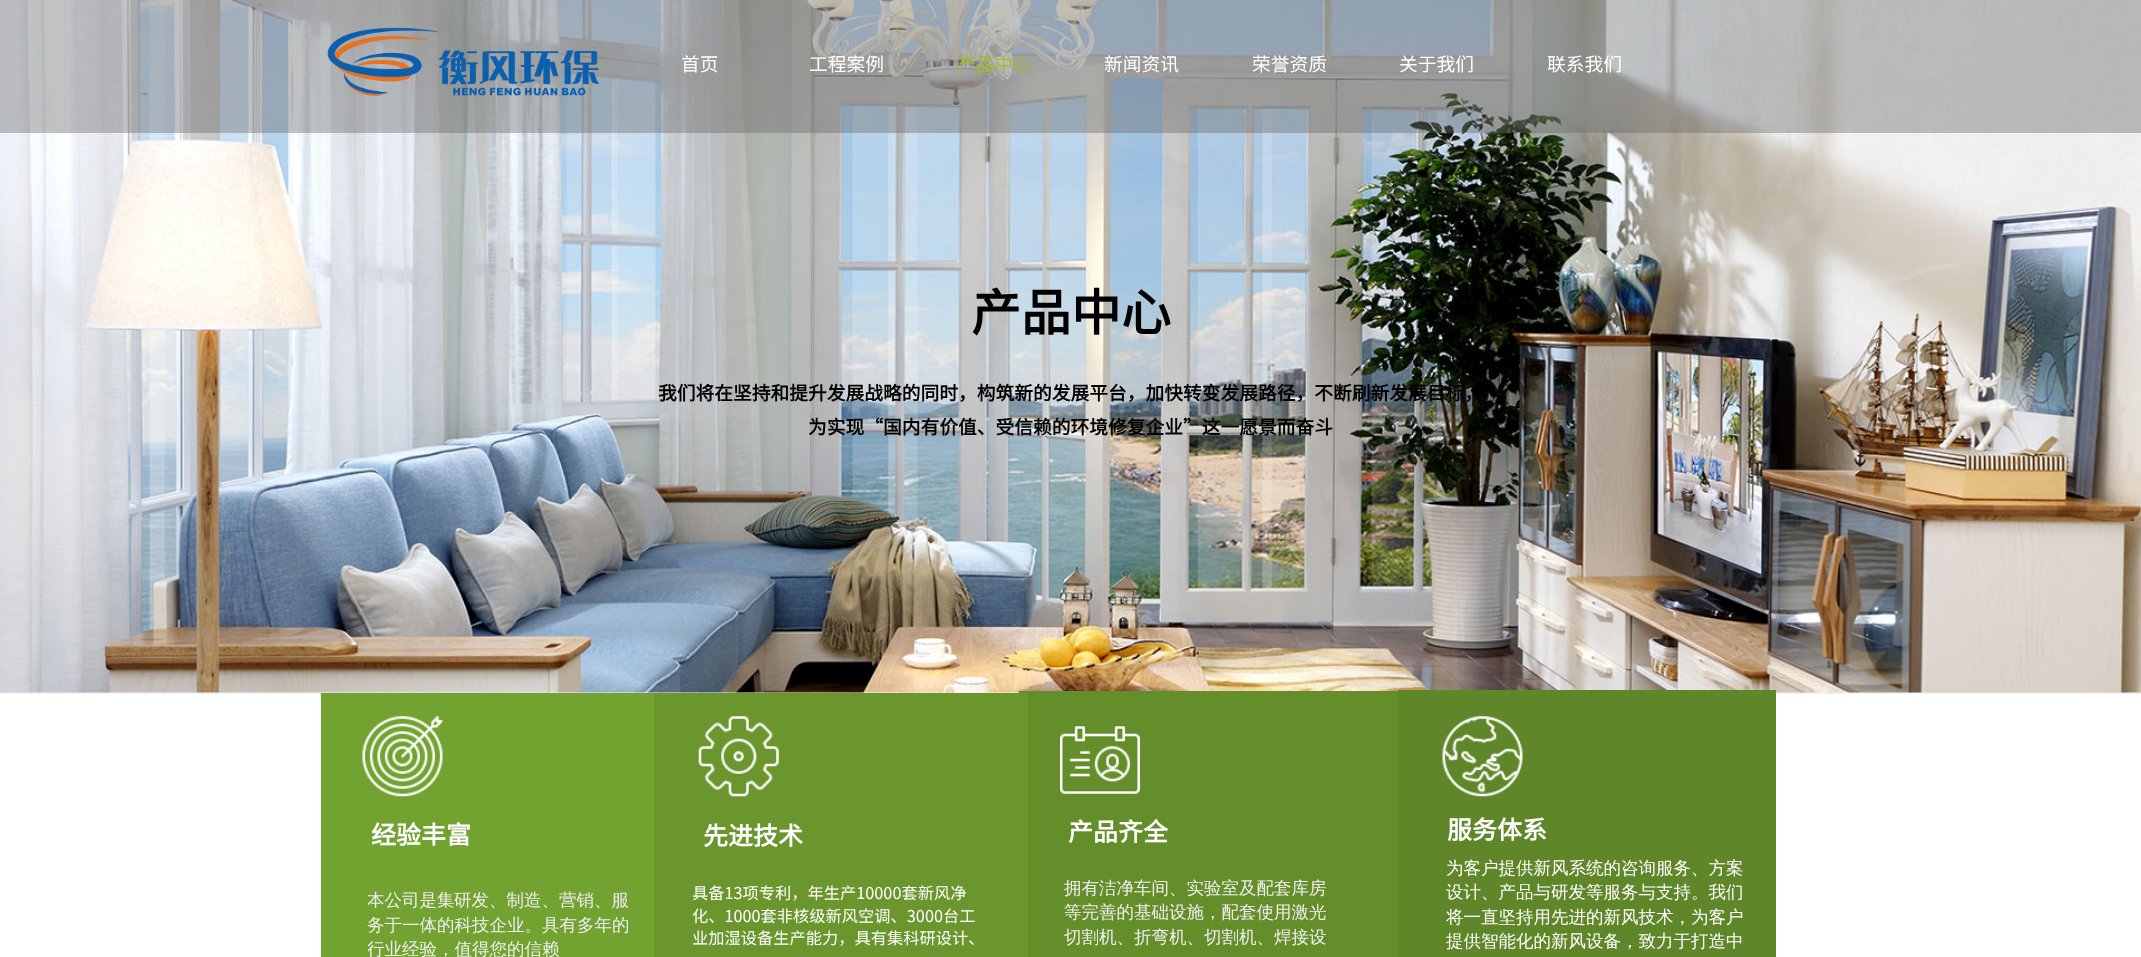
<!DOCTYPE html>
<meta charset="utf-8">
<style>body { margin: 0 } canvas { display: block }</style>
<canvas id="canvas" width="2141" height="957"></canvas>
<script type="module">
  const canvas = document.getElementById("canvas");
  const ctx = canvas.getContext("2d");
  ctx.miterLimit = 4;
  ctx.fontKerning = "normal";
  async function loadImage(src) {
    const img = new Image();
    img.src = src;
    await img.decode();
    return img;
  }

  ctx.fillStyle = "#f2f2f2";
  ctx.fillRect(0, 0, 2141, 957);
  ctx.drawImage(await loadImage("img1.png"), 0, 0, 2141, 693);
  ctx.fillStyle = "rgba(102, 102, 102, 0.4)";
  ctx.fillRect(0, 0, 2141, 133);
  ctx.drawImage(await loadImage("img2.png"), 327, 27, 272, 70);
  ctx.font = "18.75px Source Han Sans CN";
  ctx.fillStyle = "#ffffff";
  ctx.fillText("首页", 681, 71);
  ctx.fillText("工程案例", 809, 71);
  ctx.fillStyle = "#9bbf26";
  ctx.fillText("产品中心", 957, 71);
  ctx.fillStyle = "#ffffff";
  ctx.fillText("新闻资讯", 1104, 71);
  ctx.fillText("荣誉资质", 1252, 71);
  ctx.fillText("关于我们", 1399, 71);
  ctx.fillText("联系我们", 1547, 71);
  ctx.font = "bold 50px Source Han Sans CN";
  ctx.fillStyle = "#000000";
  ctx.fillText("产品中心", 971, 331);
  ctx.font = "bold 18.75px Source Han Sans CN";
  ctx.fillText("我们将在坚持和提升发展战略的同时，构筑新的发展平台，加快转变发展路径，不断刷新发展目标，", 658, 400);
  ctx.fillText("为实现“国内有价值、受信赖的环境修复企业”这一愿景而奋斗", 808, 434);
  ctx.fillStyle = "#ffffff";
  ctx.fillRect(0, 694, 2141, 263);
  ctx.fillStyle = "#72a230";
  ctx.fillRect(321, 693, 333, 264);
  ctx.drawImage(await loadImage("img3.png"), 362, 716, 81, 81);
  ctx.font = "bold 25px Source Han Sans CN";
  ctx.fillStyle = "#ffffff";
  ctx.fillText("经验丰富", 371, 844);
  ctx.save();
  ctx.beginPath();
  ctx.rect(368, 889, 275, 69);
  ctx.clip();
  ctx.font = "500 17.5px WenQuanYi Zen Hei";
  ctx.fillStyle = "#eeeeee";
  ctx.fillText("本公司是集", 367, 906);
  ctx.restore();
  ctx.font = "500 17.5px WenQuanYi Zen Hei";
  ctx.fillStyle = "#eeeeee";
  ctx.fillText("研发、制造、营销、服", 454, 906);
  ctx.fillText("务于一体的科技企业。具有多年的", 367, 931);
  ctx.save();
  ctx.beginPath();
  ctx.rect(368, 889, 275, 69);
  ctx.clip();
  ctx.fillText("行业经验，值得您的信赖", 367, 955);
  ctx.restore();
  ctx.fillStyle = "#648e2a";
  ctx.fillRect(1019, 691, 379, 266);
  ctx.fillStyle = "#6a962d";
  ctx.fillRect(654, 693, 374, 264);
  ctx.drawImage(await loadImage("img4.png"), 698, 716, 81, 81);
  ctx.font = "bold 25px Source Han Sans CN";
  ctx.fillStyle = "#ffffff";
  ctx.fillText("先进技术", 703, 845);
  ctx.save();
  ctx.beginPath();
  ctx.rect(693, 881, 297, 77);
  ctx.clip();
  ctx.font = "16.25px Source Han Sans CN";
  ctx.fillText("具备13项专利，年生产10000套新风净", 692, 899);
  ctx.restore();
  ctx.font = "16.25px Source Han Sans CN";
  ctx.fillText("化、1000套非核级新风空调、3000台工", 692, 922);
  ctx.fillText("业加湿设备生产能力，具有集科研设计、", 692, 944);
  ctx.drawImage(await loadImage("img5.png"), 1060, 726, 80, 68);
  ctx.font = "bold 25px Source Han Sans CN";
  ctx.fillText("产品齐全", 1068, 841);
  ctx.font = "500 17.5px WenQuanYi Zen Hei";
  ctx.fillStyle = "#eeeeee";
  ctx.fillText("拥有洁净车间、实验室及配套库房", 1064, 894);
  ctx.fillText("等完善的基础设施，配套使用激光", 1064, 918);
  ctx.fillText("切割机、折弯机、切割机、焊接设", 1064, 943);
  ctx.fillStyle = "#5f8628";
  ctx.fillRect(1398, 690, 378, 267);
  ctx.drawImage(await loadImage("img6.png"), 1442, 716, 81, 81);
  ctx.font = "bold 25px Source Han Sans CN";
  ctx.fillStyle = "#ffffff";
  ctx.fillText("服务体系", 1447, 839);
  ctx.font = "500 17.5px WenQuanYi Zen Hei";
  ctx.fillText("为客户提供新风系统的咨询服务、方案", 1446, 874);
  ctx.fillText("设计、产品与研发等服务与支持。我们", 1446, 898);
  ctx.fillText("将一直坚持用先进的新风技术，为客户", 1446, 923);
  ctx.fillText("提供智能化的新风设备，致力于打造中", 1446, 947);
</script>
